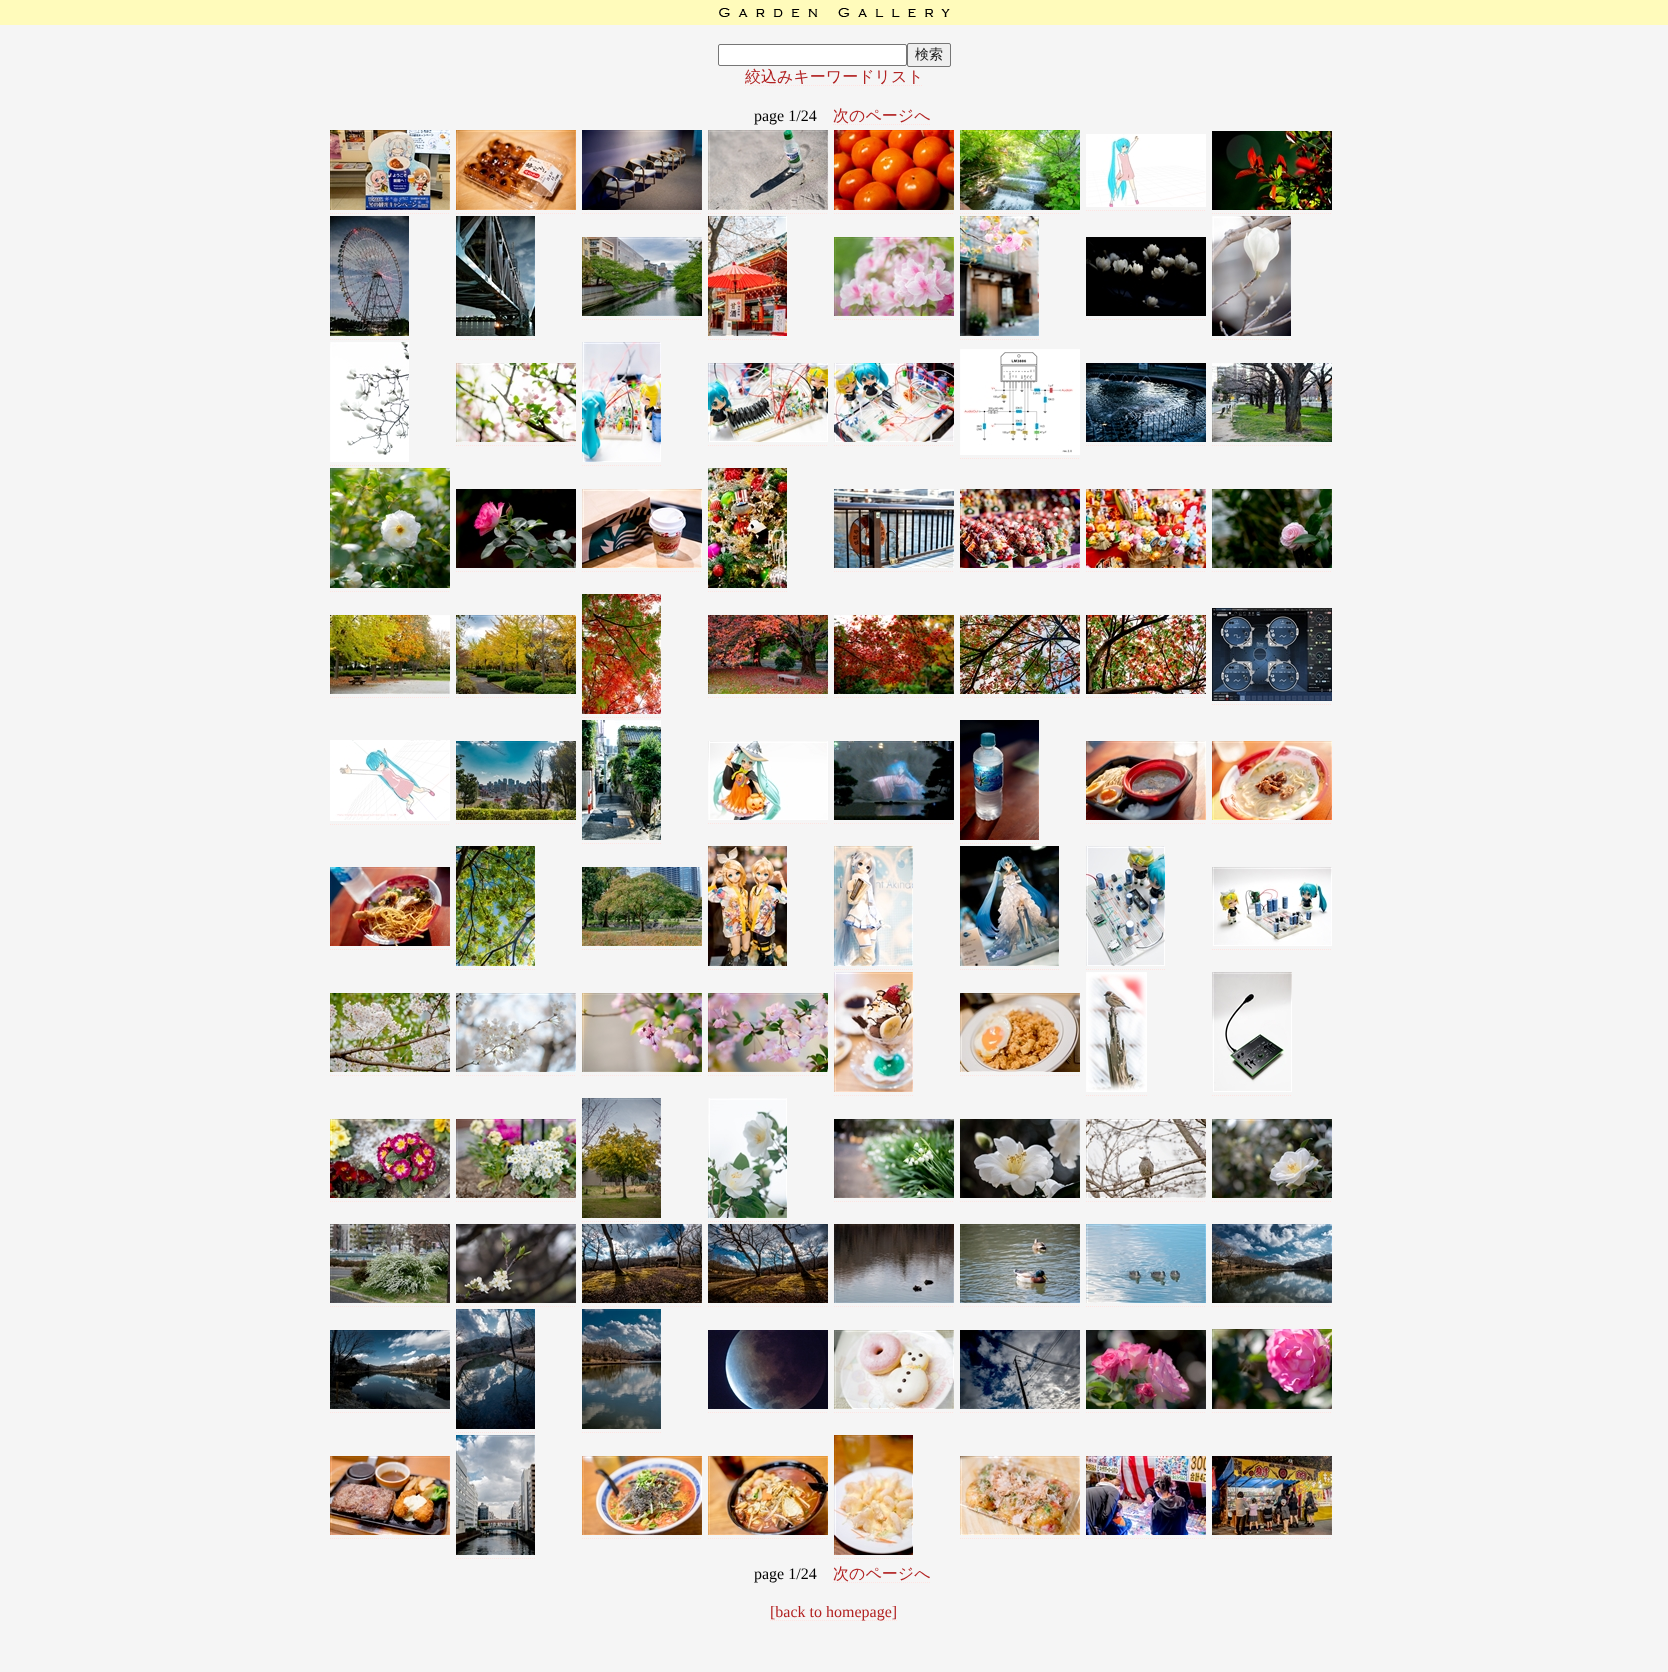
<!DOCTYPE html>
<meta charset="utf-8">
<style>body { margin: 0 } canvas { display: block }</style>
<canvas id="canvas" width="1668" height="1672"></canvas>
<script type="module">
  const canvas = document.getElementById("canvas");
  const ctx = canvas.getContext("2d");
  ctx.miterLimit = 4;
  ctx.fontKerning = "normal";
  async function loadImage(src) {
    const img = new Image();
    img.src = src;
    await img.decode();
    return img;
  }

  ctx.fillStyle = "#f5f5f5";
  ctx.fillRect(0, 0, 1668, 1672);
  ctx.fillStyle = "#fffbbb";
  ctx.fillRect(0, 0, 1668, 25);
  ctx.drawImage(await loadImage("img1.png"), 719, 8, 231, 9);
  ctx.fillStyle = "#ffffff";
  ctx.beginPath();
  ctx.roundRect(718.5, 44.5, 188, 21, 1.5);
  ctx.fill();
  ctx.strokeStyle = "#767676";
  ctx.stroke();
  ctx.fillStyle = "#efefef";
  ctx.beginPath();
  ctx.roundRect(907.5, 43.5, 43, 23, 1.5);
  ctx.fill();
  ctx.stroke();
  ctx.font = "500 14px WenQuanYi Zen Hei";
  ctx.fillStyle = "#212121";
  ctx.fillText("検索", 915, 59);
  ctx.font = "500 16px WenQuanYi Zen Hei";
  ctx.fillStyle = "#b22222";
  ctx.fillText("絞込みキーワードリスト", 745, 82);
  ctx.beginPath();
  ctx.moveTo(745, 85.5);
  ctx.lineTo(923, 85.5);
  ctx.strokeStyle = "#ffe4e1";
  ctx.setLineDash([1, 1]);
  ctx.stroke();
  ctx.font = "16px Liberation Serif";
  ctx.fillStyle = "#000000";
  ctx.fillText("page 1/24", 754, 121);
  ctx.font = "500 16px WenQuanYi Zen Hei";
  ctx.fillStyle = "#b22222";
  ctx.fillText("次のページへ", 833, 121);
  ctx.beginPath();
  ctx.moveTo(833, 124.5);
  ctx.lineTo(930, 124.5);
  ctx.stroke();
  ctx.drawImage(await loadImage("img2.png"), 330, 130, 120, 80);
  ctx.beginPath();
  ctx.moveTo(330, 213.5);
  ctx.lineTo(450, 213.5);
  ctx.stroke();
  ctx.drawImage(await loadImage("img3.png"), 456, 130, 120, 80);
  ctx.beginPath();
  ctx.moveTo(456, 213.5);
  ctx.lineTo(576, 213.5);
  ctx.stroke();
  ctx.drawImage(await loadImage("img4.png"), 582, 130, 120, 80);
  ctx.beginPath();
  ctx.moveTo(582, 213.5);
  ctx.lineTo(702, 213.5);
  ctx.stroke();
  ctx.drawImage(await loadImage("img5.png"), 708, 130, 120, 80);
  ctx.beginPath();
  ctx.moveTo(708, 213.5);
  ctx.lineTo(828, 213.5);
  ctx.stroke();
  ctx.drawImage(await loadImage("img6.png"), 834, 130, 120, 80);
  ctx.beginPath();
  ctx.moveTo(834, 213.5);
  ctx.lineTo(954, 213.5);
  ctx.stroke();
  ctx.drawImage(await loadImage("img7.png"), 960, 130, 120, 80);
  ctx.beginPath();
  ctx.moveTo(960, 213.5);
  ctx.lineTo(1080, 213.5);
  ctx.stroke();
  ctx.drawImage(await loadImage("img8.png"), 1086, 134, 120, 73);
  ctx.beginPath();
  ctx.moveTo(1086, 210.5);
  ctx.lineTo(1206, 210.5);
  ctx.stroke();
  ctx.drawImage(await loadImage("img9.png"), 1212, 131, 120, 79);
  ctx.beginPath();
  ctx.moveTo(1212, 213.5);
  ctx.lineTo(1332, 213.5);
  ctx.stroke();
  ctx.drawImage(await loadImage("img10.png"), 330, 216, 79, 120);
  ctx.beginPath();
  ctx.moveTo(330, 339.5);
  ctx.lineTo(409, 339.5);
  ctx.stroke();
  ctx.drawImage(await loadImage("img11.png"), 456, 216, 79, 120);
  ctx.beginPath();
  ctx.moveTo(456, 339.5);
  ctx.lineTo(535, 339.5);
  ctx.stroke();
  ctx.drawImage(await loadImage("img12.png"), 582, 237, 120, 79);
  ctx.beginPath();
  ctx.moveTo(582, 319.5);
  ctx.lineTo(702, 319.5);
  ctx.stroke();
  ctx.drawImage(await loadImage("img13.png"), 708, 216, 79, 120);
  ctx.beginPath();
  ctx.moveTo(708, 339.5);
  ctx.lineTo(787, 339.5);
  ctx.stroke();
  ctx.drawImage(await loadImage("img14.png"), 834, 237, 120, 79);
  ctx.beginPath();
  ctx.moveTo(834, 319.5);
  ctx.lineTo(954, 319.5);
  ctx.stroke();
  ctx.drawImage(await loadImage("img15.png"), 960, 216, 79, 120);
  ctx.beginPath();
  ctx.moveTo(960, 339.5);
  ctx.lineTo(1039, 339.5);
  ctx.stroke();
  ctx.drawImage(await loadImage("img16.png"), 1086, 237, 120, 79);
  ctx.beginPath();
  ctx.moveTo(1086, 319.5);
  ctx.lineTo(1206, 319.5);
  ctx.stroke();
  ctx.drawImage(await loadImage("img17.png"), 1212, 216, 79, 120);
  ctx.beginPath();
  ctx.moveTo(1212, 339.5);
  ctx.lineTo(1291, 339.5);
  ctx.stroke();
  ctx.drawImage(await loadImage("img18.png"), 330, 342, 79, 120);
  ctx.beginPath();
  ctx.moveTo(330, 465.5);
  ctx.lineTo(409, 465.5);
  ctx.stroke();
  ctx.drawImage(await loadImage("img19.png"), 456, 363, 120, 79);
  ctx.beginPath();
  ctx.moveTo(456, 445.5);
  ctx.lineTo(576, 445.5);
  ctx.stroke();
  ctx.drawImage(await loadImage("img20.png"), 582, 342, 79, 120);
  ctx.beginPath();
  ctx.moveTo(582, 465.5);
  ctx.lineTo(661, 465.5);
  ctx.stroke();
  ctx.drawImage(await loadImage("img21.png"), 708, 363, 120, 79);
  ctx.beginPath();
  ctx.moveTo(708, 445.5);
  ctx.lineTo(828, 445.5);
  ctx.stroke();
  ctx.drawImage(await loadImage("img22.png"), 834, 363, 120, 79);
  ctx.beginPath();
  ctx.moveTo(834, 445.5);
  ctx.lineTo(954, 445.5);
  ctx.stroke();
  ctx.drawImage(await loadImage("img23.png"), 960, 349, 120, 106);
  ctx.beginPath();
  ctx.moveTo(960, 458.5);
  ctx.lineTo(1080, 458.5);
  ctx.stroke();
  ctx.drawImage(await loadImage("img24.png"), 1086, 363, 120, 79);
  ctx.beginPath();
  ctx.moveTo(1086, 445.5);
  ctx.lineTo(1206, 445.5);
  ctx.stroke();
  ctx.drawImage(await loadImage("img25.png"), 1212, 363, 120, 79);
  ctx.beginPath();
  ctx.moveTo(1212, 445.5);
  ctx.lineTo(1332, 445.5);
  ctx.stroke();
  ctx.drawImage(await loadImage("img26.png"), 330, 468, 120, 120);
  ctx.beginPath();
  ctx.moveTo(330, 591.5);
  ctx.lineTo(450, 591.5);
  ctx.stroke();
  ctx.drawImage(await loadImage("img27.png"), 456, 489, 120, 79);
  ctx.beginPath();
  ctx.moveTo(456, 571.5);
  ctx.lineTo(576, 571.5);
  ctx.stroke();
  ctx.drawImage(await loadImage("img28.png"), 582, 489, 120, 79);
  ctx.beginPath();
  ctx.moveTo(582, 571.5);
  ctx.lineTo(702, 571.5);
  ctx.stroke();
  ctx.drawImage(await loadImage("img29.png"), 708, 468, 79, 120);
  ctx.beginPath();
  ctx.moveTo(708, 591.5);
  ctx.lineTo(787, 591.5);
  ctx.stroke();
  ctx.drawImage(await loadImage("img30.png"), 834, 489, 120, 79);
  ctx.beginPath();
  ctx.moveTo(834, 571.5);
  ctx.lineTo(954, 571.5);
  ctx.stroke();
  ctx.drawImage(await loadImage("img31.png"), 960, 489, 120, 79);
  ctx.beginPath();
  ctx.moveTo(960, 571.5);
  ctx.lineTo(1080, 571.5);
  ctx.stroke();
  ctx.drawImage(await loadImage("img32.png"), 1086, 489, 120, 79);
  ctx.beginPath();
  ctx.moveTo(1086, 571.5);
  ctx.lineTo(1206, 571.5);
  ctx.stroke();
  ctx.drawImage(await loadImage("img33.png"), 1212, 489, 120, 79);
  ctx.beginPath();
  ctx.moveTo(1212, 571.5);
  ctx.lineTo(1332, 571.5);
  ctx.stroke();
  ctx.drawImage(await loadImage("img34.png"), 330, 615, 120, 79);
  ctx.beginPath();
  ctx.moveTo(330, 697.5);
  ctx.lineTo(450, 697.5);
  ctx.stroke();
  ctx.drawImage(await loadImage("img35.png"), 456, 615, 120, 79);
  ctx.beginPath();
  ctx.moveTo(456, 697.5);
  ctx.lineTo(576, 697.5);
  ctx.stroke();
  ctx.drawImage(await loadImage("img36.png"), 582, 594, 79, 120);
  ctx.beginPath();
  ctx.moveTo(582, 717.5);
  ctx.lineTo(661, 717.5);
  ctx.stroke();
  ctx.drawImage(await loadImage("img37.png"), 708, 615, 120, 79);
  ctx.beginPath();
  ctx.moveTo(708, 697.5);
  ctx.lineTo(828, 697.5);
  ctx.stroke();
  ctx.drawImage(await loadImage("img38.png"), 834, 615, 120, 79);
  ctx.beginPath();
  ctx.moveTo(834, 697.5);
  ctx.lineTo(954, 697.5);
  ctx.stroke();
  ctx.drawImage(await loadImage("img39.png"), 960, 615, 120, 79);
  ctx.beginPath();
  ctx.moveTo(960, 697.5);
  ctx.lineTo(1080, 697.5);
  ctx.stroke();
  ctx.drawImage(await loadImage("img40.png"), 1086, 615, 120, 79);
  ctx.beginPath();
  ctx.moveTo(1086, 697.5);
  ctx.lineTo(1206, 697.5);
  ctx.stroke();
  ctx.drawImage(await loadImage("img41.png"), 1212, 608, 120, 93);
  ctx.beginPath();
  ctx.moveTo(1212, 704.5);
  ctx.lineTo(1332, 704.5);
  ctx.stroke();
  ctx.drawImage(await loadImage("img42.png"), 330, 740, 120, 81);
  ctx.beginPath();
  ctx.moveTo(330, 824.5);
  ctx.lineTo(450, 824.5);
  ctx.stroke();
  ctx.drawImage(await loadImage("img43.png"), 456, 741, 120, 79);
  ctx.beginPath();
  ctx.moveTo(456, 823.5);
  ctx.lineTo(576, 823.5);
  ctx.stroke();
  ctx.drawImage(await loadImage("img44.png"), 582, 720, 79, 120);
  ctx.beginPath();
  ctx.moveTo(582, 843.5);
  ctx.lineTo(661, 843.5);
  ctx.stroke();
  ctx.drawImage(await loadImage("img45.png"), 708, 741, 120, 79);
  ctx.beginPath();
  ctx.moveTo(708, 823.5);
  ctx.lineTo(828, 823.5);
  ctx.stroke();
  ctx.drawImage(await loadImage("img46.png"), 834, 741, 120, 79);
  ctx.beginPath();
  ctx.moveTo(834, 823.5);
  ctx.lineTo(954, 823.5);
  ctx.stroke();
  ctx.drawImage(await loadImage("img47.png"), 960, 720, 79, 120);
  ctx.beginPath();
  ctx.moveTo(960, 843.5);
  ctx.lineTo(1039, 843.5);
  ctx.stroke();
  ctx.drawImage(await loadImage("img48.png"), 1086, 741, 120, 79);
  ctx.beginPath();
  ctx.moveTo(1086, 823.5);
  ctx.lineTo(1206, 823.5);
  ctx.stroke();
  ctx.drawImage(await loadImage("img49.png"), 1212, 741, 120, 79);
  ctx.beginPath();
  ctx.moveTo(1212, 823.5);
  ctx.lineTo(1332, 823.5);
  ctx.stroke();
  ctx.drawImage(await loadImage("img50.png"), 330, 867, 120, 79);
  ctx.beginPath();
  ctx.moveTo(330, 949.5);
  ctx.lineTo(450, 949.5);
  ctx.stroke();
  ctx.drawImage(await loadImage("img51.png"), 456, 846, 79, 120);
  ctx.beginPath();
  ctx.moveTo(456, 969.5);
  ctx.lineTo(535, 969.5);
  ctx.stroke();
  ctx.drawImage(await loadImage("img52.png"), 582, 867, 120, 79);
  ctx.beginPath();
  ctx.moveTo(582, 949.5);
  ctx.lineTo(702, 949.5);
  ctx.stroke();
  ctx.drawImage(await loadImage("img53.png"), 708, 846, 79, 120);
  ctx.beginPath();
  ctx.moveTo(708, 969.5);
  ctx.lineTo(787, 969.5);
  ctx.stroke();
  ctx.drawImage(await loadImage("img54.png"), 834, 846, 79, 120);
  ctx.beginPath();
  ctx.moveTo(834, 969.5);
  ctx.lineTo(913, 969.5);
  ctx.stroke();
  ctx.drawImage(await loadImage("img55.png"), 960, 846, 99, 120);
  ctx.beginPath();
  ctx.moveTo(960, 969.5);
  ctx.lineTo(1059, 969.5);
  ctx.stroke();
  ctx.drawImage(await loadImage("img56.png"), 1086, 846, 79, 120);
  ctx.beginPath();
  ctx.moveTo(1086, 969.5);
  ctx.lineTo(1165, 969.5);
  ctx.stroke();
  ctx.drawImage(await loadImage("img57.png"), 1212, 867, 120, 79);
  ctx.beginPath();
  ctx.moveTo(1212, 949.5);
  ctx.lineTo(1332, 949.5);
  ctx.stroke();
  ctx.drawImage(await loadImage("img58.png"), 330, 993, 120, 79);
  ctx.beginPath();
  ctx.moveTo(330, 1075.5);
  ctx.lineTo(450, 1075.5);
  ctx.stroke();
  ctx.drawImage(await loadImage("img59.png"), 456, 993, 120, 79);
  ctx.beginPath();
  ctx.moveTo(456, 1075.5);
  ctx.lineTo(576, 1075.5);
  ctx.stroke();
  ctx.drawImage(await loadImage("img60.png"), 582, 993, 120, 79);
  ctx.beginPath();
  ctx.moveTo(582, 1075.5);
  ctx.lineTo(702, 1075.5);
  ctx.stroke();
  ctx.drawImage(await loadImage("img61.png"), 708, 993, 120, 79);
  ctx.beginPath();
  ctx.moveTo(708, 1075.5);
  ctx.lineTo(828, 1075.5);
  ctx.stroke();
  ctx.drawImage(await loadImage("img62.png"), 834, 972, 79, 120);
  ctx.beginPath();
  ctx.moveTo(834, 1095.5);
  ctx.lineTo(913, 1095.5);
  ctx.stroke();
  ctx.drawImage(await loadImage("img63.png"), 960, 993, 120, 79);
  ctx.beginPath();
  ctx.moveTo(960, 1075.5);
  ctx.lineTo(1080, 1075.5);
  ctx.stroke();
  ctx.drawImage(await loadImage("img64.png"), 1086, 972, 61, 120);
  ctx.beginPath();
  ctx.moveTo(1086, 1095.5);
  ctx.lineTo(1147, 1095.5);
  ctx.stroke();
  ctx.drawImage(await loadImage("img65.png"), 1212, 972, 80, 120);
  ctx.beginPath();
  ctx.moveTo(1212, 1095.5);
  ctx.lineTo(1292, 1095.5);
  ctx.stroke();
  ctx.drawImage(await loadImage("img66.png"), 330, 1119, 120, 79);
  ctx.beginPath();
  ctx.moveTo(330, 1201.5);
  ctx.lineTo(450, 1201.5);
  ctx.stroke();
  ctx.drawImage(await loadImage("img67.png"), 456, 1119, 120, 79);
  ctx.beginPath();
  ctx.moveTo(456, 1201.5);
  ctx.lineTo(576, 1201.5);
  ctx.stroke();
  ctx.drawImage(await loadImage("img68.png"), 582, 1098, 79, 120);
  ctx.beginPath();
  ctx.moveTo(582, 1221.5);
  ctx.lineTo(661, 1221.5);
  ctx.stroke();
  ctx.drawImage(await loadImage("img69.png"), 708, 1098, 79, 120);
  ctx.beginPath();
  ctx.moveTo(708, 1221.5);
  ctx.lineTo(787, 1221.5);
  ctx.stroke();
  ctx.drawImage(await loadImage("img70.png"), 834, 1119, 120, 79);
  ctx.beginPath();
  ctx.moveTo(834, 1201.5);
  ctx.lineTo(954, 1201.5);
  ctx.stroke();
  ctx.drawImage(await loadImage("img71.png"), 960, 1119, 120, 79);
  ctx.beginPath();
  ctx.moveTo(960, 1201.5);
  ctx.lineTo(1080, 1201.5);
  ctx.stroke();
  ctx.drawImage(await loadImage("img72.png"), 1086, 1119, 120, 79);
  ctx.beginPath();
  ctx.moveTo(1086, 1201.5);
  ctx.lineTo(1206, 1201.5);
  ctx.stroke();
  ctx.drawImage(await loadImage("img73.png"), 1212, 1119, 120, 79);
  ctx.beginPath();
  ctx.moveTo(1212, 1201.5);
  ctx.lineTo(1332, 1201.5);
  ctx.stroke();
  ctx.drawImage(await loadImage("img74.png"), 330, 1224, 120, 79);
  ctx.beginPath();
  ctx.moveTo(330, 1306.5);
  ctx.lineTo(450, 1306.5);
  ctx.stroke();
  ctx.drawImage(await loadImage("img75.png"), 456, 1224, 120, 79);
  ctx.beginPath();
  ctx.moveTo(456, 1306.5);
  ctx.lineTo(576, 1306.5);
  ctx.stroke();
  ctx.drawImage(await loadImage("img76.png"), 582, 1224, 120, 79);
  ctx.beginPath();
  ctx.moveTo(582, 1306.5);
  ctx.lineTo(702, 1306.5);
  ctx.stroke();
  ctx.drawImage(await loadImage("img77.png"), 708, 1224, 120, 79);
  ctx.beginPath();
  ctx.moveTo(708, 1306.5);
  ctx.lineTo(828, 1306.5);
  ctx.stroke();
  ctx.drawImage(await loadImage("img78.png"), 834, 1224, 120, 79);
  ctx.beginPath();
  ctx.moveTo(834, 1306.5);
  ctx.lineTo(954, 1306.5);
  ctx.stroke();
  ctx.drawImage(await loadImage("img79.png"), 960, 1224, 120, 79);
  ctx.beginPath();
  ctx.moveTo(960, 1306.5);
  ctx.lineTo(1080, 1306.5);
  ctx.stroke();
  ctx.drawImage(await loadImage("img80.png"), 1086, 1224, 120, 79);
  ctx.beginPath();
  ctx.moveTo(1086, 1306.5);
  ctx.lineTo(1206, 1306.5);
  ctx.stroke();
  ctx.drawImage(await loadImage("img81.png"), 1212, 1224, 120, 79);
  ctx.beginPath();
  ctx.moveTo(1212, 1306.5);
  ctx.lineTo(1332, 1306.5);
  ctx.stroke();
  ctx.drawImage(await loadImage("img82.png"), 330, 1330, 120, 79);
  ctx.beginPath();
  ctx.moveTo(330, 1412.5);
  ctx.lineTo(450, 1412.5);
  ctx.stroke();
  ctx.drawImage(await loadImage("img83.png"), 456, 1309, 79, 120);
  ctx.beginPath();
  ctx.moveTo(456, 1432.5);
  ctx.lineTo(535, 1432.5);
  ctx.stroke();
  ctx.drawImage(await loadImage("img84.png"), 582, 1309, 79, 120);
  ctx.beginPath();
  ctx.moveTo(582, 1432.5);
  ctx.lineTo(661, 1432.5);
  ctx.stroke();
  ctx.drawImage(await loadImage("img85.png"), 708, 1330, 120, 79);
  ctx.beginPath();
  ctx.moveTo(708, 1412.5);
  ctx.lineTo(828, 1412.5);
  ctx.stroke();
  ctx.drawImage(await loadImage("img86.png"), 834, 1330, 120, 79);
  ctx.beginPath();
  ctx.moveTo(834, 1412.5);
  ctx.lineTo(954, 1412.5);
  ctx.stroke();
  ctx.drawImage(await loadImage("img87.png"), 960, 1330, 120, 79);
  ctx.beginPath();
  ctx.moveTo(960, 1412.5);
  ctx.lineTo(1080, 1412.5);
  ctx.stroke();
  ctx.drawImage(await loadImage("img88.png"), 1086, 1330, 120, 79);
  ctx.beginPath();
  ctx.moveTo(1086, 1412.5);
  ctx.lineTo(1206, 1412.5);
  ctx.stroke();
  ctx.drawImage(await loadImage("img89.png"), 1212, 1329, 120, 80);
  ctx.beginPath();
  ctx.moveTo(1212, 1412.5);
  ctx.lineTo(1332, 1412.5);
  ctx.stroke();
  ctx.drawImage(await loadImage("img90.png"), 330, 1456, 120, 79);
  ctx.beginPath();
  ctx.moveTo(330, 1538.5);
  ctx.lineTo(450, 1538.5);
  ctx.stroke();
  ctx.drawImage(await loadImage("img91.png"), 456, 1435, 79, 120);
  ctx.beginPath();
  ctx.moveTo(456, 1558.5);
  ctx.lineTo(535, 1558.5);
  ctx.stroke();
  ctx.drawImage(await loadImage("img92.png"), 582, 1456, 120, 79);
  ctx.beginPath();
  ctx.moveTo(582, 1538.5);
  ctx.lineTo(702, 1538.5);
  ctx.stroke();
  ctx.drawImage(await loadImage("img93.png"), 708, 1456, 120, 79);
  ctx.beginPath();
  ctx.moveTo(708, 1538.5);
  ctx.lineTo(828, 1538.5);
  ctx.stroke();
  ctx.drawImage(await loadImage("img94.png"), 834, 1435, 79, 120);
  ctx.beginPath();
  ctx.moveTo(834, 1558.5);
  ctx.lineTo(913, 1558.5);
  ctx.stroke();
  ctx.drawImage(await loadImage("img95.png"), 960, 1456, 120, 79);
  ctx.beginPath();
  ctx.moveTo(960, 1538.5);
  ctx.lineTo(1080, 1538.5);
  ctx.stroke();
  ctx.drawImage(await loadImage("img96.png"), 1086, 1456, 120, 79);
  ctx.beginPath();
  ctx.moveTo(1086, 1538.5);
  ctx.lineTo(1206, 1538.5);
  ctx.stroke();
  ctx.drawImage(await loadImage("img97.png"), 1212, 1456, 120, 79);
  ctx.beginPath();
  ctx.moveTo(1212, 1538.5);
  ctx.lineTo(1332, 1538.5);
  ctx.stroke();
  ctx.font = "16px Liberation Serif";
  ctx.fillStyle = "#000000";
  ctx.fillText("page 1/24", 754, 1579);
  ctx.font = "500 16px WenQuanYi Zen Hei";
  ctx.fillStyle = "#b22222";
  ctx.fillText("次のページへ", 833, 1579);
  ctx.beginPath();
  ctx.moveTo(833, 1582.5);
  ctx.lineTo(930, 1582.5);
  ctx.stroke();
  ctx.beginPath();
  ctx.moveTo(770, 1620.5);
  ctx.lineTo(898, 1620.5);
  ctx.stroke();
  ctx.font = "16px Liberation Serif";
  ctx.fillText("[back to homepage]", 770, 1617);
</script>
